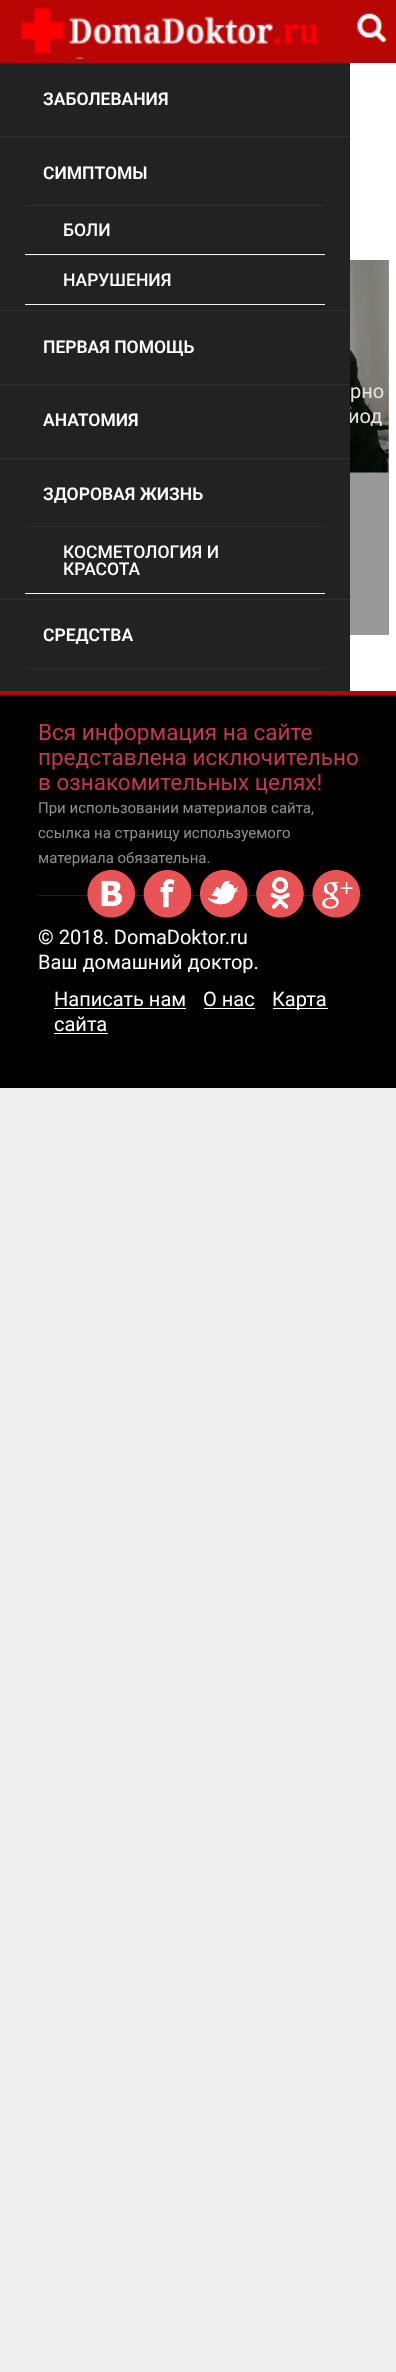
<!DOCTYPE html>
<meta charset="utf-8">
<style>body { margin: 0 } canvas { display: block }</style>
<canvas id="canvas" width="396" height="2372"></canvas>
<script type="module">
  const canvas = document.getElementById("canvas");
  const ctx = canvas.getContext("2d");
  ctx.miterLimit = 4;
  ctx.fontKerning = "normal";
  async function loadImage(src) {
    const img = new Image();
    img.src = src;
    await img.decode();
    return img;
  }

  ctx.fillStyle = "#eeeeee";
  ctx.fillRect(0, 0, 396, 2372);
  ctx.fillStyle = "#ffffff";
  ctx.fillRect(350, 63, 46, 628);
  ctx.fillStyle = "#999999";
  ctx.fillRect(350, 260, 39, 375);
  ctx.fillStyle = "#ba0505";
  ctx.fillRect(0, 0, 396, 63);
  ctx.drawImage(await loadImage("img1.png"), 21, 7, 299, 52);
  ctx.drawImage(await loadImage("img2.png"), 356, 13, 31, 30);
  ctx.drawImage(await loadImage("img3.png"), 350, 260, 39, 213);
  ctx.font = "20px Roboto";
  ctx.fillStyle = "#e5e4e3";
  ctx.fillText("иод", 348, 423);
  ctx.fillStyle = "#222222";
  ctx.fillRect(0, 64, 350, 627);
  ctx.fillStyle = "#2f2f2f";
  ctx.fillRect(0, 63, 350, 1);
  ctx.font = "600 17.5px Roboto";
  ctx.fillStyle = "#ffffff";
  ctx.fillText("ЗАБОЛЕВАНИЯ", 43, 105);
  ctx.fillStyle = "#2f2f2f";
  ctx.fillRect(0, 136, 350, 1);
  ctx.fillStyle = "#ffffff";
  ctx.fillText("СИМПТОМЫ", 43, 179);
  ctx.fillStyle = "#2f2f2f";
  ctx.fillRect(25, 205, 300, 1);
  ctx.fillStyle = "#f5f5f5";
  ctx.fillRect(25, 254, 300, 1);
  ctx.font = "500 17.5px Roboto";
  ctx.fillStyle = "#ffffff";
  ctx.fillText("БОЛИ", 63, 236);
  ctx.fillStyle = "#2f2f2f";
  ctx.fillRect(25, 255, 300, 1);
  ctx.fillStyle = "#f5f5f5";
  ctx.fillRect(25, 304, 300, 1);
  ctx.fillStyle = "#ffffff";
  ctx.fillText("НАРУШЕНИЯ", 63, 286);
  ctx.fillStyle = "#2f2f2f";
  ctx.fillRect(0, 310, 350, 1);
  ctx.font = "600 17.5px Roboto";
  ctx.fillStyle = "#ffffff";
  ctx.fillText("ПЕРВАЯ ПОМОЩЬ", 43, 353);
  ctx.fillStyle = "#2f2f2f";
  ctx.fillRect(0, 384, 350, 1);
  ctx.fillStyle = "#ffffff";
  ctx.fillText("АНАТОМИЯ", 43, 426);
  ctx.fillStyle = "#2f2f2f";
  ctx.fillRect(0, 458, 350, 1);
  ctx.fillStyle = "#ffffff";
  ctx.fillText("ЗДОРОВАЯ ЖИЗНЬ", 43, 500);
  ctx.fillStyle = "#2f2f2f";
  ctx.fillRect(25, 526, 300, 1);
  ctx.fillStyle = "#f5f5f5";
  ctx.fillRect(25, 593, 300, 1);
  ctx.font = "500 17.5px Roboto";
  ctx.fillStyle = "#ffffff";
  ctx.fillText("КОСМЕТОЛОГИЯ И", 63, 558);
  ctx.fillText("КРАСОТА", 63, 575);
  ctx.fillStyle = "#2f2f2f";
  ctx.fillRect(0, 599, 350, 1);
  ctx.font = "600 17.5px Roboto";
  ctx.fillStyle = "#ffffff";
  ctx.fillText("СРЕДСТВА", 43, 641);
  ctx.fillStyle = "#2f2f2f";
  ctx.fillRect(25, 668, 300, 1);
  ctx.font = "20px Roboto";
  ctx.fillStyle = "#e5e4e3";
  ctx.fillText("рно", 350, 398);
  ctx.fillStyle = "#000000";
  ctx.fillRect(0, 695, 396, 393);
  ctx.fillStyle = "#ba0505";
  ctx.fillRect(0, 691, 396, 4);
  ctx.fillStyle = "#202020";
  ctx.fillRect(38, 895, 325, 1);
  ctx.font = "22.5px Roboto";
  ctx.fillStyle = "#c43751";
  ctx.fillText("Вся информация на сайте", 38, 740);
  ctx.fillText("представлена исключительно", 38, 765);
  ctx.fillText("в ознакомительных целях!", 38, 790);
  ctx.font = "15px Roboto";
  ctx.fillStyle = "#909090";
  ctx.fillText("При использовании материалов сайта,", 38, 813);
  ctx.fillText("ссылка на страницу используемого", 38, 838);
  ctx.fillText("материала обязательна.", 38, 863);
  ctx.drawImage(await loadImage("img4.png"), 87, 870, 48, 48);
  ctx.drawImage(await loadImage("img5.png"), 143, 870, 49, 48);
  ctx.drawImage(await loadImage("img6.png"), 200, 870, 48, 48);
  ctx.drawImage(await loadImage("img7.png"), 256, 870, 48, 48);
  ctx.drawImage(await loadImage("img8.png"), 312, 870, 48, 48);
  ctx.font = "20px Roboto";
  ctx.fillStyle = "#ffffff";
  ctx.fillText("© 2018. DomaDoktor.ru", 38, 944);
  ctx.fillText("Ваш домашний доктор.", 38, 969);
  ctx.fillText("Написать нам", 54, 1006);
  ctx.fillRect(54, 1008, 132, 1);
  ctx.fillText("О нас", 203, 1006);
  ctx.fillRect(204, 1008, 51, 1);
  ctx.fillRect(273, 1008, 55, 1);
  ctx.fillText("Карта", 272, 1006);
  ctx.fillText("сайта", 54, 1031);
  ctx.fillRect(54, 1033, 54, 1);
</script>
